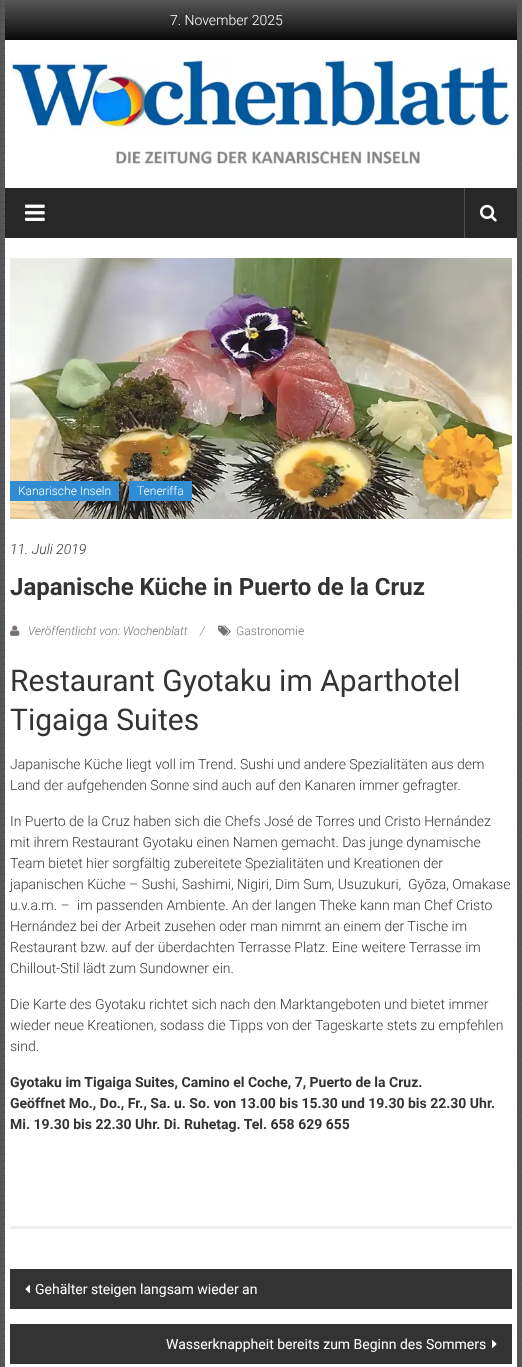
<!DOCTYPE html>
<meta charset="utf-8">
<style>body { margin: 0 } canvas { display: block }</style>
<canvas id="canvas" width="522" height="1367"></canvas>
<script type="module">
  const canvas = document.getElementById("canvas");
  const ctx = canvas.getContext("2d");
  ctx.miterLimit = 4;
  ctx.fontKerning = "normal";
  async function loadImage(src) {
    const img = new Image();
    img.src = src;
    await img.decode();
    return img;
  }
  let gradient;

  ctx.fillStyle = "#ffffff";
  ctx.fillRect(0, 0, 522, 1367);
  ctx.drawImage(await loadImage("img1.png"), 0, 0, 522, 1367);
  ctx.fillRect(5, 40, 512, 1327);
  gradient = ctx.createLinearGradient(261, 0, 261, 40);
  gradient.addColorStop(0, "#565656");
  gradient.addColorStop(1, "#0a0a0a");
  ctx.fillStyle = gradient;
  ctx.fillRect(5, 0, 512, 40);
  ctx.font = "300 14px Roboto";
  ctx.fillStyle = "#ffffff";
  ctx.fillText("7. November 2025", 170, 25);
  ctx.drawImage(await loadImage("img2.png"), 10, 60, 501, 104);
  ctx.fillStyle = "#272727";
  ctx.fillRect(5, 188, 512, 50);
  ctx.drawImage(await loadImage("img3.png"), 25, 204, 20, 17);
  ctx.fillStyle = "#525252";
  ctx.fillRect(464, 188, 1, 50);
  ctx.drawImage(await loadImage("img4.png"), 480, 204, 17, 18);
  ctx.fillStyle = "#eeeeee";
  ctx.fillRect(10, 1226, 502, 3);
  ctx.drawImage(await loadImage("img5.png"), 10, 258, 502, 261);
  ctx.fillStyle = "#308dd3";
  ctx.fillRect(10, 481, 109, 20);
  ctx.font = "300 12px Roboto";
  ctx.fillStyle = "#ffffff";
  ctx.fillText("Kanarische Inseln", 18, 495);
  ctx.fillStyle = "#308dd3";
  ctx.fillRect(129, 481, 63, 20);
  ctx.fillStyle = "#ffffff";
  ctx.fillText("Teneriffa", 137, 495);
  ctx.font = "italic 300 14px Roboto";
  ctx.fillStyle = "#333333";
  ctx.fillText("11. Juli 2019", 10, 554);
  ctx.font = "bold 24px Roboto";
  ctx.fillText("Japanische Küche in Puerto de la Cruz", 10, 595);
  ctx.drawImage(await loadImage("img6.png"), 10, 625, 10, 11);
  ctx.font = "italic 300 12px Roboto";
  ctx.fillStyle = "#767272";
  ctx.fillText("Veröffentlicht von: Wochenblatt", 28, 635);
  ctx.fillStyle = "#808080";
  ctx.fillText("/", 200, 635);
  ctx.drawImage(await loadImage("img7.png"), 218, 625, 13, 11);
  ctx.font = "300 12px Roboto";
  ctx.fillStyle = "#767272";
  ctx.fillText("Gastronomie", 236, 635);
  ctx.font = "30px Roboto";
  ctx.fillStyle = "#333333";
  ctx.fillText("Restaurant Gyotaku im Aparthotel", 10, 691);
  ctx.fillText("Tigaiga Suites", 10, 730);
  ctx.font = "300 14px Roboto";
  ctx.fillText("Japanische Küche liegt voll im Trend. Sushi und andere Spezialitäten aus dem", 10, 769);
  ctx.fillText("Land der aufgehenden Sonne sind auch auf den Kanaren immer gefragter.", 10, 790);
  ctx.fillText("In Puerto de la Cruz haben sich die Chefs José de Torres und Cristo Hernández", 10, 826);
  ctx.fillText("mit ihrem Restaurant Gyotaku einen Namen gemacht. Das junge dynamische", 10, 847);
  ctx.fillText("Team bietet hier sorgfältig zubereitete Spezialitäten und Kreationen der", 10, 868);
  ctx.fillText("japanischen Küche – Sushi, Sashimi, Nigiri, Dim Sum, Usuzukuri,", 10, 889);
  ctx.fillText("Gyōza, Omakase", 408, 889);
  ctx.fillText("u.v.a.m. –", 10, 910);
  ctx.fillText("im passenden Ambiente. An der langen Theke kann man Chef Cristo", 77, 910);
  ctx.fillText("Hernández bei der Arbeit zusehen oder man nimmt an einem der Tische im", 10, 931);
  ctx.fillText("Restaurant bzw. auf der überdachten Terrasse Platz. Eine weitere Terrasse im", 10, 952);
  ctx.fillText("Chillout-Stil lädt zum Sundowner ein.", 10, 973);
  ctx.fillText("Die Karte des Gyotaku richtet sich nach den Marktangeboten und bietet immer", 10, 1009);
  ctx.fillText("wieder neue Kreationen, sodass die Tipps von der Tageskarte stets zu empfehlen", 10, 1030);
  ctx.fillText("sind.", 10, 1051);
  ctx.font = "bold 14px Roboto";
  ctx.fillText("Gyotaku im Tigaiga Suites, Camino el Coche, 7, Puerto de la Cruz.", 10, 1087);
  ctx.fillText("Geöffnet Mo., Do., Fr., Sa. u. So. von 13.00 bis 15.30 und 19.30 bis 22.30 Uhr.", 10, 1108);
  ctx.fillText("Mi. 19.30 bis 22.30 Uhr. Di. Ruhetag. Tel. 658 629 655", 10, 1129);
  ctx.fillRect(10, 1269, 502, 40);
  ctx.drawImage(await loadImage("img8.png"), 25, 1285, 5, 8);
  ctx.font = "14px Roboto";
  ctx.fillStyle = "#ffffff";
  ctx.fillText("Gehälter steigen langsam wieder an", 35, 1294);
  ctx.fillStyle = "#333333";
  ctx.fillRect(10, 1324, 502, 40);
  ctx.fillStyle = "#ffffff";
  ctx.fillText("Wasserknappheit bereits zum Beginn des Sommers", 166, 1349);
  ctx.drawImage(await loadImage("img9.png"), 492, 1340, 5, 8);
</script>
